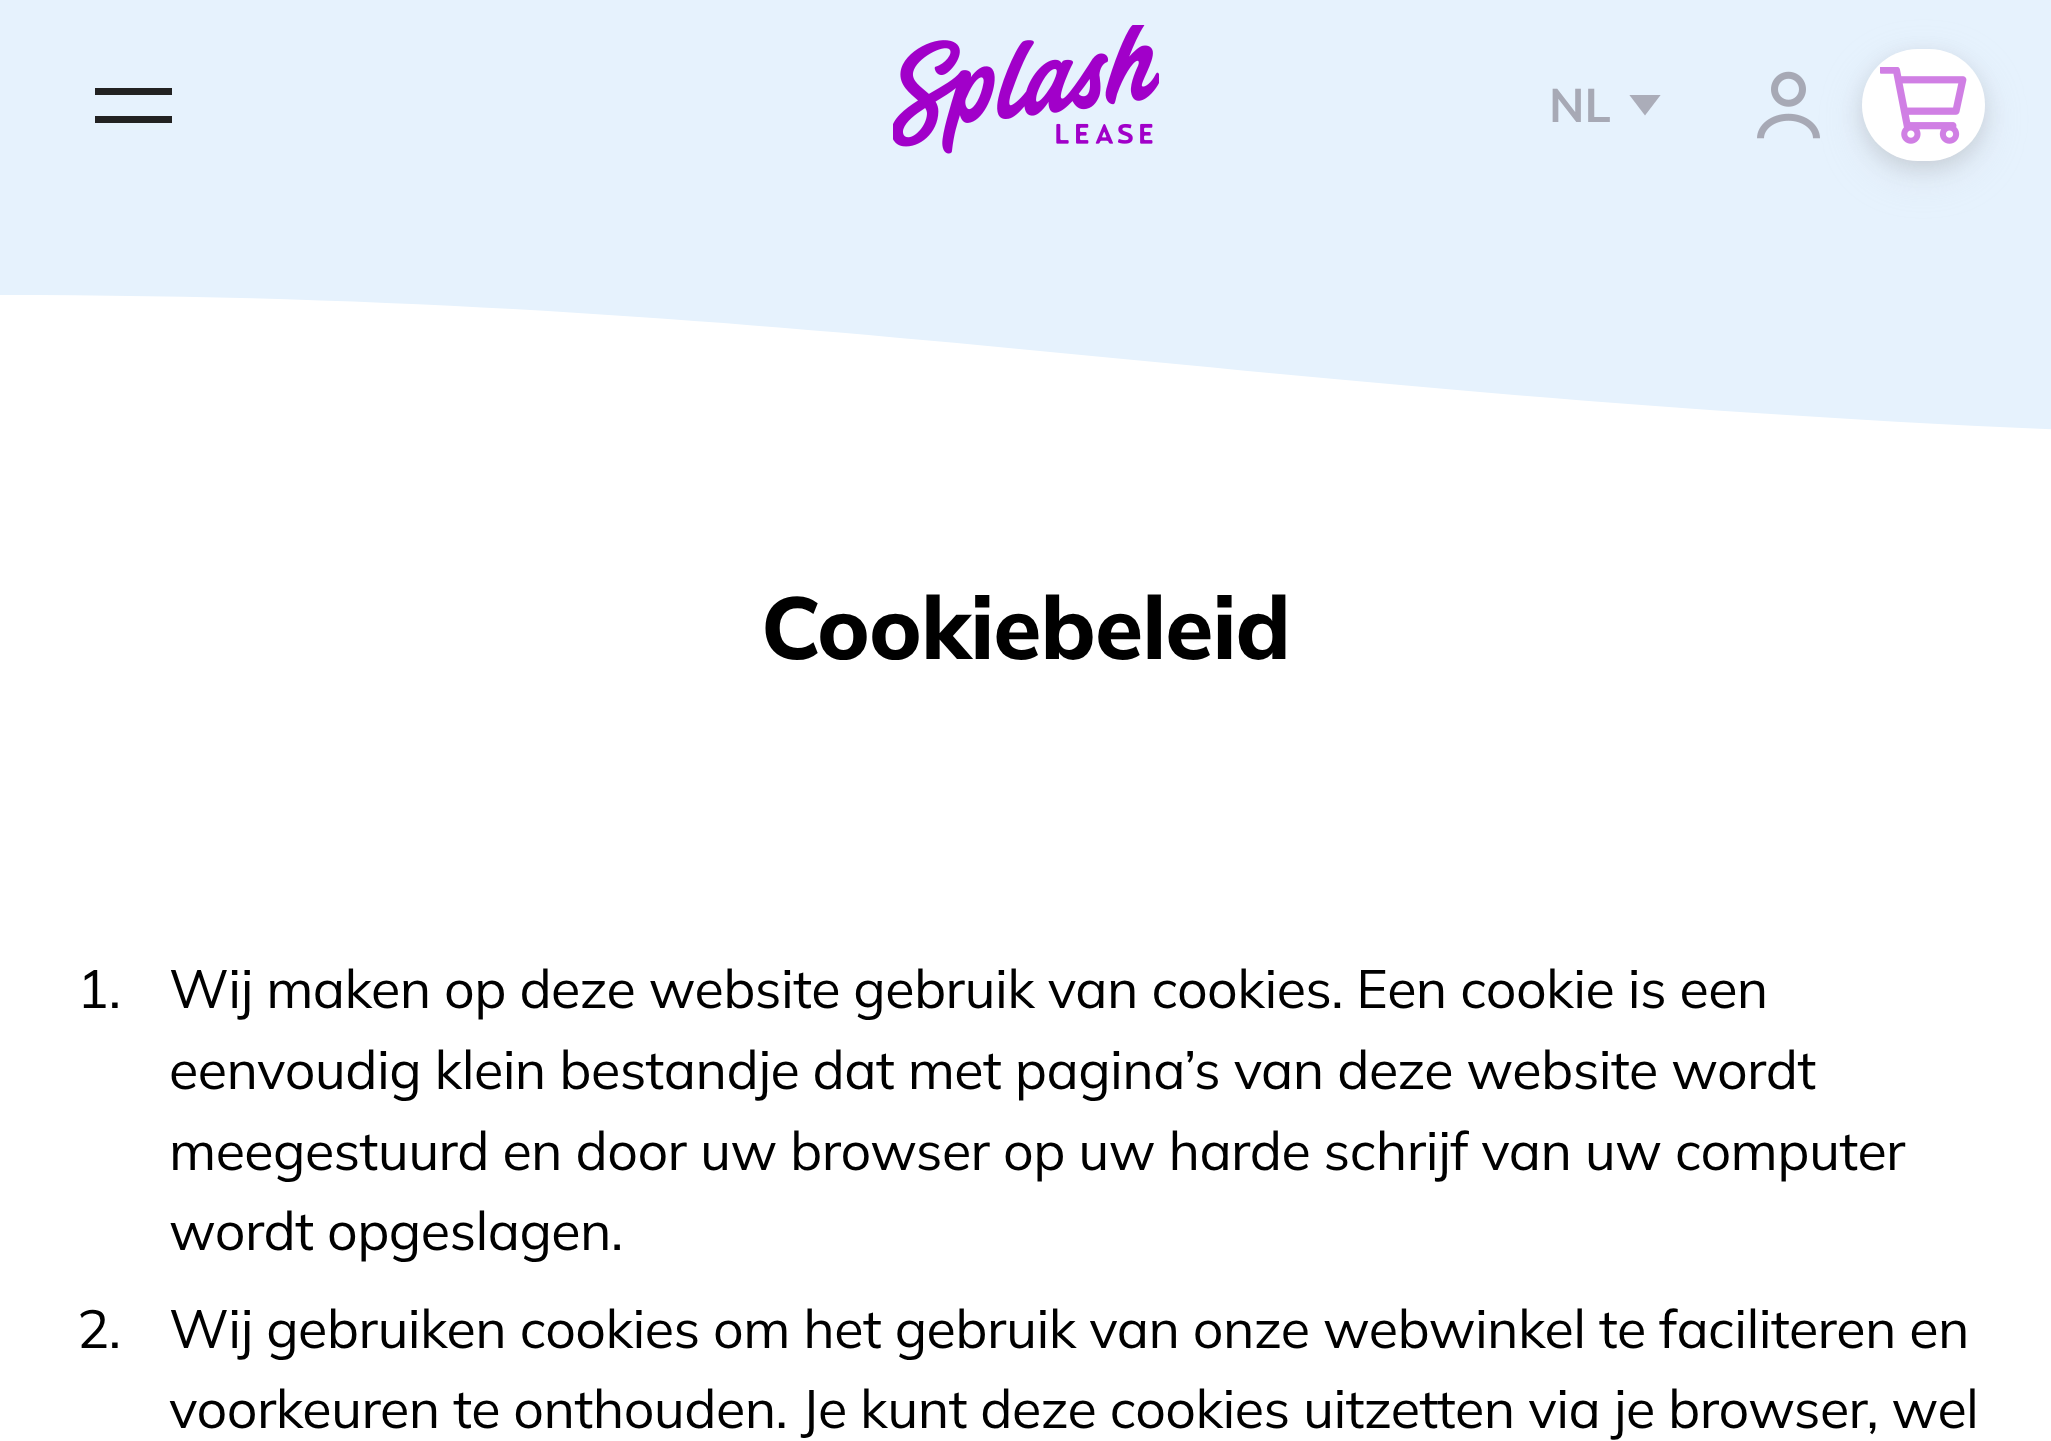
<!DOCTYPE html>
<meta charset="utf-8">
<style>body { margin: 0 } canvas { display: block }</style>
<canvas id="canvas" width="2051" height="1441"></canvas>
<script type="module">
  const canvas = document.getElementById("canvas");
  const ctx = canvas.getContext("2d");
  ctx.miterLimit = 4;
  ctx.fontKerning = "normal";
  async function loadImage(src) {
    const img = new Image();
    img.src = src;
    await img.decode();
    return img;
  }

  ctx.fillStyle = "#ffffff";
  ctx.fillRect(0, 0, 2051, 1441);
  ctx.fillStyle = "#e6f2fd";
  ctx.fillRect(0, 0, 2051, 200);
  ctx.fillStyle = "#222222";
  ctx.fillRect(95, 88, 77, 7);
  ctx.fillRect(95, 116, 77, 7);
  ctx.drawImage(await loadImage("img1.png"), 893, 25, 266, 129);
  ctx.font = "bold 47px Mulish";
  ctx.fillStyle = "#a7a9b5";
  ctx.fillText("NL", 1549, 122);
  ctx.save();
  ctx.beginPath();
  ctx.rect(1628, 95, 35, 21);
  ctx.clip();
  ctx.fillStyle = "#abadb9";
  ctx.beginPath();
  ctx.moveTo(1645, 115.5);
  ctx.lineTo(1629, 94.5);
  ctx.lineTo(1661, 94.5);
  ctx.closePath();
  ctx.fill("evenodd");
  ctx.restore();
  ctx.fillStyle = "#e6f2fd";
  ctx.beginPath();
  ctx.moveTo(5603, 295);
  ctx.bezierCurveTo(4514, 295, 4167, 445, 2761, 444);
  ctx.bezierCurveTo(1360, 444, 1009, 295, -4, 295);
  ctx.lineTo(-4, 200);
  ctx.lineTo(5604, 200);
  ctx.closePath();
  ctx.fill();
  ctx.fillStyle = "rgba(198, 199, 206, 0.3)";
  ctx.filter = "blur(21px)";
  ctx.beginPath();
  ctx.roundRect(1862, 63, 123, 112, 56);
  ctx.fill();
  ctx.filter = "none";
  ctx.drawImage(await loadImage("img2.png"), 1757, 71, 63, 68);
  ctx.fillStyle = "rgba(0, 0, 0, 0.1)";
  ctx.filter = "blur(10.5px)";
  ctx.beginPath();
  ctx.roundRect(1862, 56, 123, 112, 56);
  ctx.fill();
  ctx.filter = "none";
  ctx.fillStyle = "#ffffff";
  ctx.beginPath();
  ctx.roundRect(1862, 49, 123, 112, 56);
  ctx.fill();
  ctx.drawImage(await loadImage("img3.png"), 1880, 67, 87, 77);
  ctx.letterSpacing = "-0.9px";
  ctx.font = "800 87.5px Mulish";
  ctx.fillStyle = "#000000";
  ctx.fillText("Cookiebeleid", 761, 659);
  ctx.letterSpacing = "-0.55px";
  ctx.font = "53.75px Mulish";
  ctx.fillText("1.", 77, 1008);
  ctx.fillText("Wij maken op deze website gebruik van cookies. Een cookie is een", 169, 1008);
  ctx.fillText("eenvoudig klein bestandje dat met pagina’s van deze website wordt", 169, 1089);
  ctx.fillText("meegestuurd en door uw browser op uw harde schrijf van uw computer", 169, 1170);
  ctx.fillText("wordt opgeslagen.", 169, 1250);
  ctx.fillText("2.", 77, 1348);
  ctx.fillText("Wij gebruiken cookies om het gebruik van onze webwinkel te faciliteren en", 169, 1348);
  ctx.fillText("voorkeuren te onthouden. Je kunt deze cookies uitzetten via je browser, wel", 169, 1428);
</script>
